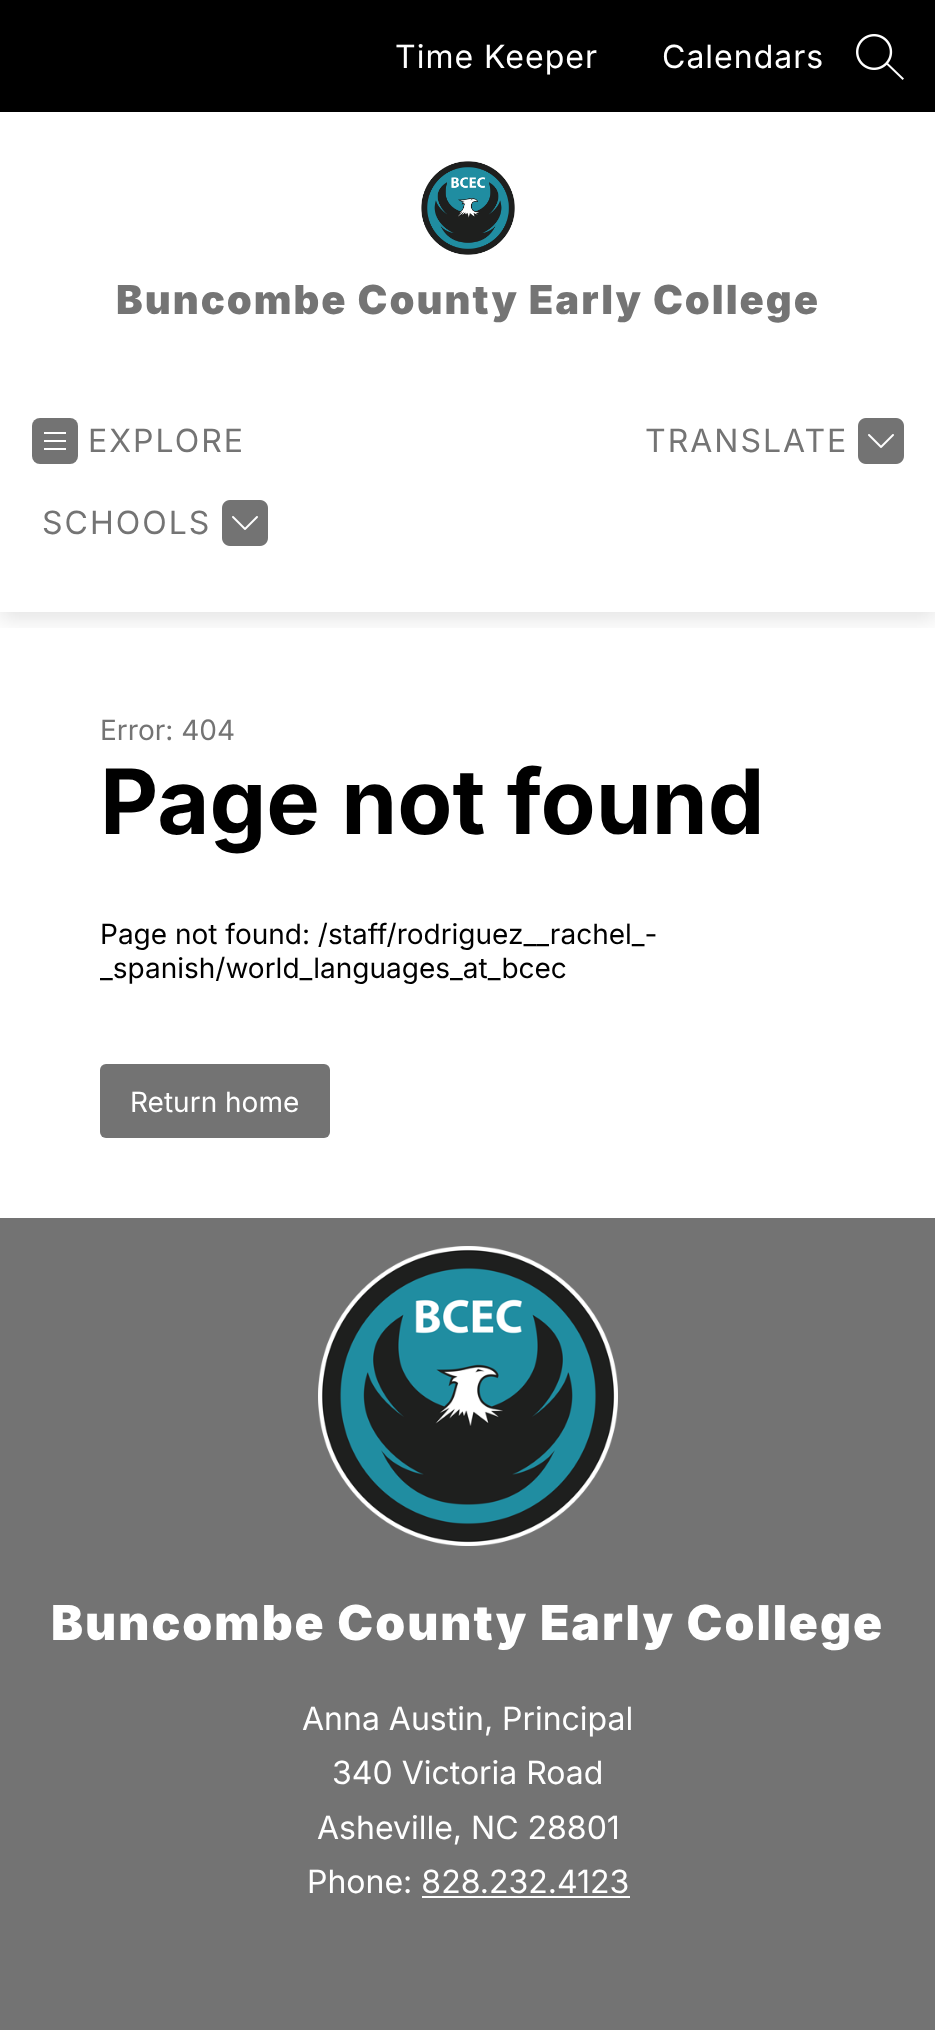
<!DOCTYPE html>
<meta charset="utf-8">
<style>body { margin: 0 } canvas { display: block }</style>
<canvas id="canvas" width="935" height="2030"></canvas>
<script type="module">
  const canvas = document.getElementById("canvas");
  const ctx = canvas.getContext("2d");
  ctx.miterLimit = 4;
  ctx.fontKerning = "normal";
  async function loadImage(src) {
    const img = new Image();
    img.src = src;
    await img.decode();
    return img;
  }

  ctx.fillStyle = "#ffffff";
  ctx.fillRect(0, 0, 935, 2030);
  ctx.save();
  ctx.beginPath();
  ctx.rect(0, 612, 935, 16);
  ctx.clip();
  ctx.fillStyle = "rgba(0, 0, 0, 0.1)";
  ctx.filter = "blur(10px)";
  ctx.beginPath();
  ctx.rect(0, 8, 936, 612);
  ctx.fill();
  ctx.filter = "none";
  ctx.restore();
  ctx.fillStyle = "#000000";
  ctx.fillRect(0, 0, 935, 112);
  ctx.letterSpacing = "1px";
  ctx.font = "32px Inter";
  ctx.fillStyle = "#ffffff";
  ctx.fillText("Time Keeper", 395, 68);
  ctx.fillText("Calendars", 662, 68);
  ctx.drawImage(await loadImage("img1.png"), 856, 34, 48, 46);
  ctx.drawImage(await loadImage("img2.png"), 421, 161, 94, 94);
  ctx.letterSpacing = "2px";
  ctx.font = "900 40px Inter";
  ctx.fillStyle = "#747474";
  ctx.fillText("Buncombe County Early College", 116, 314);
  ctx.fillStyle = "#737373";
  ctx.beginPath();
  ctx.roundRect(32, 418, 46, 46, 8);
  ctx.fill();
  ctx.fillStyle = "#ffffff";
  ctx.beginPath();
  ctx.moveTo(44, 432);
  ctx.lineTo(66, 432);
  ctx.lineTo(66, 434);
  ctx.lineTo(44, 434);
  ctx.closePath();
  ctx.moveTo(44, 440);
  ctx.lineTo(66, 440);
  ctx.lineTo(66, 442);
  ctx.lineTo(44, 442);
  ctx.closePath();
  ctx.moveTo(66, 448);
  ctx.lineTo(44, 448);
  ctx.lineTo(44, 450);
  ctx.lineTo(66, 450);
  ctx.closePath();
  ctx.fill("evenodd");
  ctx.font = "32px Inter";
  ctx.fillStyle = "#747474";
  ctx.fillText("EXPLORE", 88, 452);
  ctx.fillText("SCHOOLS", 42, 534);
  ctx.drawImage(await loadImage("img3.png"), 222, 500, 46, 46);
  ctx.fillText("TRANSLATE", 645, 452);
  ctx.drawImage(await loadImage("img3.png"), 858, 418, 46, 46);
  ctx.letterSpacing = "0px";
  ctx.font = "28px Inter";
  ctx.fillText("Error: 404", 100, 740);
  ctx.font = "bold 90px Inter";
  ctx.fillStyle = "#000000";
  ctx.fillText("Page not found", 100, 834);
  ctx.font = "28px Inter";
  ctx.fillText("Page not found: /staff/rodriguez__rachel_-", 100, 944);
  ctx.fillText("_spanish/world_languages_at_bcec", 100, 978);
  ctx.fillStyle = "#737373";
  ctx.beginPath();
  ctx.roundRect(100, 1064, 230, 74, 6);
  ctx.fill();
  ctx.fillStyle = "#ffffff";
  ctx.fillText("Return home", 130, 1112);
  ctx.fillStyle = "#737373";
  ctx.fillRect(0, 1218, 935, 812);
  ctx.drawImage(await loadImage("img4.png"), 318, 1246, 300, 300);
  ctx.letterSpacing = "2px";
  ctx.font = "900 48px Inter";
  ctx.fillStyle = "#ffffff";
  ctx.fillText("Buncombe County Early College", 51, 1640);
  ctx.letterSpacing = "0px";
  ctx.font = "32px Inter";
  ctx.fillText("Anna Austin, Principal", 302, 1730);
  ctx.fillText("340 Victoria Road", 332, 1784);
  ctx.fillText("Asheville, NC 28801", 317, 1839);
  ctx.fillText("Phone: 828.232.4123", 307, 1893);
  ctx.fillRect(422, 1896, 208, 2);
</script>
